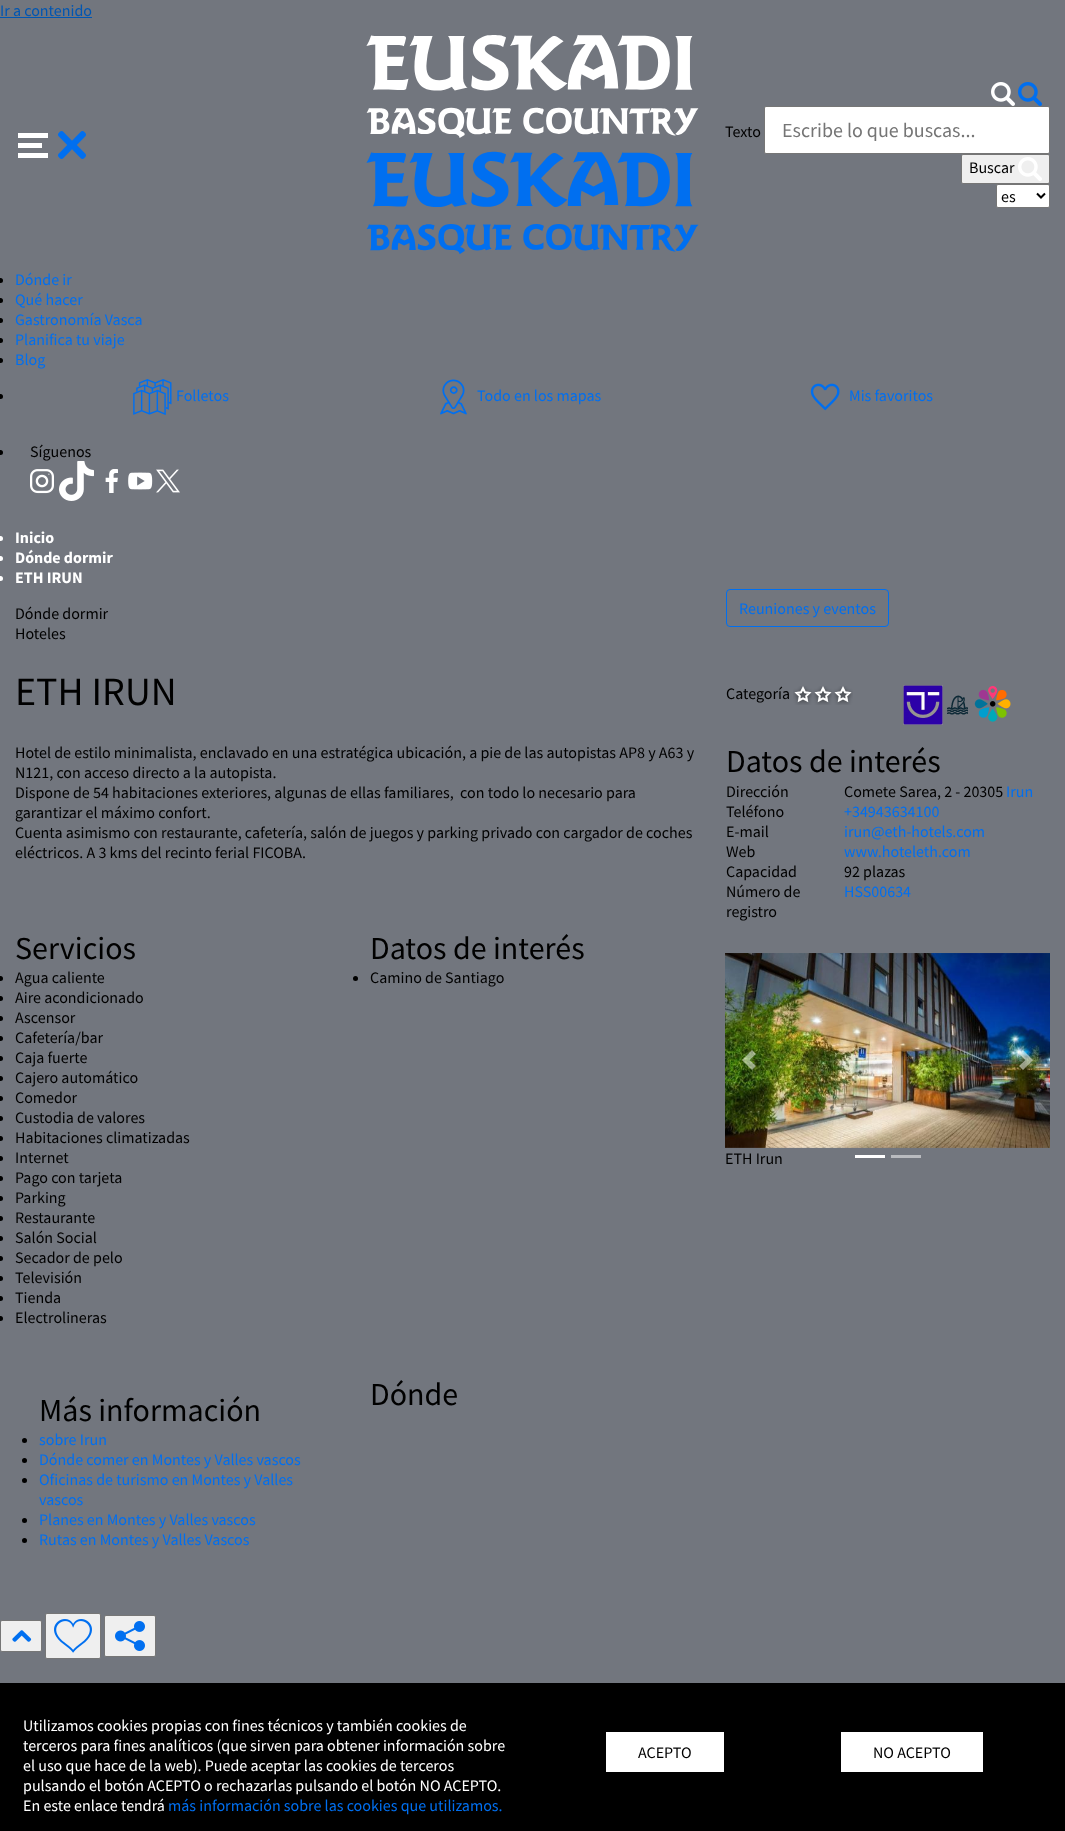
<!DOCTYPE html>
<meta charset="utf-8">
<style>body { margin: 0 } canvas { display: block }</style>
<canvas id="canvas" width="1065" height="1831"></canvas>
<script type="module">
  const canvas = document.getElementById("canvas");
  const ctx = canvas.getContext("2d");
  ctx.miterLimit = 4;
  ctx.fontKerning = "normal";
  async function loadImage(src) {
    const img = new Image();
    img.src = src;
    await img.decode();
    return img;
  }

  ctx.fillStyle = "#72767e";
  ctx.fillRect(0, 0, 1065, 1831);
  ctx.font = "16px Source Sans Pro";
  ctx.fillStyle = "#0056b3";
  ctx.fillText("Ir a contenido", 0, 16);
  ctx.fillRect(0, 17, 92, 1);
  ctx.fillStyle = "#ffffff";
  ctx.fillRect(18, 133, 30, 5);
  ctx.drawImage(await loadImage("img1.png"), 58, 131, 28, 28);
  ctx.fillRect(18, 143, 24, 5);
  ctx.fillRect(18, 153, 30, 5);
  ctx.drawImage(await loadImage("img2.png"), 366, 35, 333, 103);
  ctx.drawImage(await loadImage("img3.png"), 366, 151, 333, 104);
  ctx.drawImage(await loadImage("img4.png"), 991, 82, 24, 24);
  ctx.drawImage(await loadImage("img5.png"), 1018, 82, 24, 24);
  ctx.fillStyle = "#000000";
  ctx.fillText("Texto", 725, 137);
  ctx.fillStyle = "#ffffff";
  ctx.beginPath();
  ctx.roundRect(764.5, 106.5, 285, 47, 1.5);
  ctx.fill();
  ctx.strokeStyle = "#767676";
  ctx.stroke();
  ctx.font = "20px Source Sans Pro";
  ctx.fillStyle = "#757575";
  ctx.fillText("Escribe lo que buscas...", 782, 137);
  ctx.fillStyle = "#efefef";
  ctx.beginPath();
  ctx.roundRect(961.5, 154.5, 88, 29, 1.5);
  ctx.fill();
  ctx.stroke();
  ctx.font = "16px Source Sans Pro";
  ctx.fillStyle = "#000000";
  ctx.fillText("Buscar", 969, 173);
  ctx.drawImage(await loadImage("img6.png"), 1018, 157, 24, 24);
  ctx.fillStyle = "#ffffff";
  ctx.beginPath();
  ctx.roundRect(996.5, 184.5, 53, 23, 1.5);
  ctx.fill();
  ctx.stroke();
  ctx.beginPath();
  ctx.moveTo(1037, 193.5);
  ctx.lineTo(1041, 197.5);
  ctx.lineTo(1045, 193.5);
  ctx.strokeStyle = "#000000";
  ctx.lineWidth = 2;
  ctx.stroke();
  ctx.fillStyle = "#000000";
  ctx.fillText("es", 1001, 202);
  ctx.beginPath();
  ctx.arc(0.5, 280.5, 2.5, 0, Math.PI * 2);
  ctx.fill();
  ctx.fillStyle = "#006ff0";
  ctx.fillText("Dónde ir", 15, 285);
  ctx.fillStyle = "#000000";
  ctx.beginPath();
  ctx.arc(0.5, 300.5, 2.5, 0, Math.PI * 2);
  ctx.fill();
  ctx.fillStyle = "#006ff0";
  ctx.fillText("Qué hacer", 15, 305);
  ctx.fillStyle = "#000000";
  ctx.beginPath();
  ctx.arc(0.5, 320.5, 2.5, 0, Math.PI * 2);
  ctx.fill();
  ctx.fillStyle = "#006ff0";
  ctx.fillText("Gastronomía Vasca", 15, 325);
  ctx.fillStyle = "#000000";
  ctx.beginPath();
  ctx.arc(0.5, 340.5, 2.5, 0, Math.PI * 2);
  ctx.fill();
  ctx.fillStyle = "#006ff0";
  ctx.fillText("Planifica tu viaje", 15, 345);
  ctx.fillStyle = "#000000";
  ctx.beginPath();
  ctx.arc(0.5, 360.5, 2.5, 0, Math.PI * 2);
  ctx.fill();
  ctx.fillStyle = "#006ff0";
  ctx.fillText("Blog", 15, 365);
  ctx.fillStyle = "#000000";
  ctx.beginPath();
  ctx.arc(0.5, 396.5, 2.5, 0, Math.PI * 2);
  ctx.fill();
  ctx.drawImage(await loadImage("img7.png"), 133, 379, 39, 36);
  ctx.fillStyle = "#006ff0";
  ctx.fillText("Folletos", 176, 401);
  ctx.drawImage(await loadImage("img8.png"), 440, 379, 27, 36);
  ctx.fillText("Todo en los mapas", 477, 401);
  ctx.drawImage(await loadImage("img9.png"), 810, 383, 30, 28);
  ctx.fillText("Mis favoritos", 849, 401);
  ctx.fillStyle = "#000000";
  ctx.beginPath();
  ctx.arc(0.5, 452.5, 2.5, 0, Math.PI * 2);
  ctx.fill();
  ctx.fillText("Síguenos", 30, 457);
  ctx.drawImage(await loadImage("img10.png"), 30, 469, 24, 25);
  ctx.drawImage(await loadImage("img11.png"), 59, 461, 35, 40);
  ctx.drawImage(await loadImage("img12.png"), 105, 469, 13, 24);
  ctx.drawImage(await loadImage("img13.png"), 128, 472, 25, 18);
  ctx.drawImage(await loadImage("img14.png"), 156, 469, 24, 24);
  ctx.fillStyle = "#ffffff";
  ctx.beginPath();
  ctx.arc(0.5, 538.5, 2.5, 0, Math.PI * 2);
  ctx.fill();
  ctx.font = "bold 16px Source Sans Pro";
  ctx.fillText("Inicio", 15, 543);
  ctx.beginPath();
  ctx.arc(0.5, 558.5, 2.5, 0, Math.PI * 2);
  ctx.fill();
  ctx.fillText("Dónde dormir", 15, 563);
  ctx.beginPath();
  ctx.arc(0.5, 578.5, 2.5, 0, Math.PI * 2);
  ctx.fill();
  ctx.fillText("ETH IRUN", 15, 583);
  ctx.font = "16px Source Sans Pro";
  ctx.fillStyle = "#000000";
  ctx.fillText("Dónde dormir", 15, 619);
  ctx.fillText("Hoteles", 15, 639);
  ctx.beginPath();
  ctx.roundRect(726.5, 589.5, 162, 37, 3.5);
  ctx.strokeStyle = "#006ff0";
  ctx.lineWidth = 1;
  ctx.stroke();
  ctx.fillStyle = "#006ff0";
  ctx.fillText("Reuniones y eventos", 739, 614);
  ctx.font = "40px Source Sans Pro";
  ctx.fillStyle = "#000000";
  ctx.fillText("ETH IRUN", 15, 705);
  ctx.font = "16px Source Sans Pro";
  ctx.fillText("Categoría", 726, 699);
  ctx.drawImage(await loadImage("img15.png"), 793, 686, 20, 19);
  ctx.drawImage(await loadImage("img15.png"), 813, 686, 20, 19);
  ctx.drawImage(await loadImage("img15.png"), 833, 686, 20, 19);
  ctx.drawImage(await loadImage("img16.png"), 903, 685, 40, 40);
  ctx.drawImage(await loadImage("img17.png"), 947, 695, 21, 20);
  ctx.drawImage(await loadImage("img18.png"), 974, 686, 37, 36);
  ctx.fillText("Hotel de estilo minimalista, enclavado en una estratégica ubicación, a pie de las autopistas AP8 y A63 y", 15, 758);
  ctx.fillText("N121, con acceso directo a la autopista.", 15, 778);
  ctx.fillText("Dispone de 54 habitaciones exteriores, algunas de ellas familiares,  con todo lo necesario para", 15, 798);
  ctx.fillText("garantizar el máximo confort.", 15, 818);
  ctx.fillText("Cuenta asimismo con restaurante, cafetería, salón de juegos y parking privado con cargador de coches", 15, 838);
  ctx.fillText("eléctricos. A 3 kms del recinto ferial FICOBA.", 15, 858);
  ctx.font = "32px Source Sans Pro";
  ctx.fillText("Datos de interés", 726, 772);
  ctx.font = "16px Source Sans Pro";
  ctx.fillText("Dirección", 726, 797);
  ctx.fillText("Comete Sarea, 2 - 20305", 844, 797);
  ctx.fillStyle = "#006ff0";
  ctx.fillText("Irun", 1006, 797);
  ctx.fillStyle = "#000000";
  ctx.fillText("Teléfono", 726, 817);
  ctx.fillStyle = "#006ff0";
  ctx.fillText("+34943634100", 844, 817);
  ctx.fillStyle = "#000000";
  ctx.fillText("E-mail", 726, 837);
  ctx.fillStyle = "#006ff0";
  ctx.fillText("irun@eth-hotels.com", 844, 837);
  ctx.fillStyle = "#000000";
  ctx.fillText("Web", 726, 857);
  ctx.fillStyle = "#006ff0";
  ctx.fillText("www.hoteleth.com", 844, 857);
  ctx.fillStyle = "#000000";
  ctx.fillText("Capacidad", 726, 877);
  ctx.fillText("92 plazas", 844, 877);
  ctx.fillText("Número de", 726, 897);
  ctx.fillText("registro", 726, 917);
  ctx.fillStyle = "#006ff0";
  ctx.fillText("HSS00634", 844, 897);
  ctx.font = "32px Source Sans Pro";
  ctx.fillStyle = "#000000";
  ctx.fillText("Servicios", 15, 959);
  ctx.beginPath();
  ctx.arc(0.5, 978.5, 2.5, 0, Math.PI * 2);
  ctx.fill();
  ctx.font = "16px Source Sans Pro";
  ctx.fillText("Agua caliente", 15, 983);
  ctx.beginPath();
  ctx.arc(0.5, 998.5, 2.5, 0, Math.PI * 2);
  ctx.fill();
  ctx.fillText("Aire acondicionado", 15, 1003);
  ctx.beginPath();
  ctx.arc(0.5, 1018.5, 2.5, 0, Math.PI * 2);
  ctx.fill();
  ctx.fillText("Ascensor", 15, 1023);
  ctx.beginPath();
  ctx.arc(0.5, 1038.5, 2.5, 0, Math.PI * 2);
  ctx.fill();
  ctx.fillText("Cafetería/bar", 15, 1043);
  ctx.beginPath();
  ctx.arc(0.5, 1058.5, 2.5, 0, Math.PI * 2);
  ctx.fill();
  ctx.fillText("Caja fuerte", 15, 1063);
  ctx.beginPath();
  ctx.arc(0.5, 1078.5, 2.5, 0, Math.PI * 2);
  ctx.fill();
  ctx.fillText("Cajero automático", 15, 1083);
  ctx.beginPath();
  ctx.arc(0.5, 1098.5, 2.5, 0, Math.PI * 2);
  ctx.fill();
  ctx.fillText("Comedor", 15, 1103);
  ctx.beginPath();
  ctx.arc(0.5, 1118.5, 2.5, 0, Math.PI * 2);
  ctx.fill();
  ctx.fillText("Custodia de valores", 15, 1123);
  ctx.beginPath();
  ctx.arc(0.5, 1138.5, 2.5, 0, Math.PI * 2);
  ctx.fill();
  ctx.fillText("Habitaciones climatizadas", 15, 1143);
  ctx.beginPath();
  ctx.arc(0.5, 1158.5, 2.5, 0, Math.PI * 2);
  ctx.fill();
  ctx.fillText("Internet", 15, 1163);
  ctx.beginPath();
  ctx.arc(0.5, 1178.5, 2.5, 0, Math.PI * 2);
  ctx.fill();
  ctx.fillText("Pago con tarjeta", 15, 1183);
  ctx.beginPath();
  ctx.arc(0.5, 1198.5, 2.5, 0, Math.PI * 2);
  ctx.fill();
  ctx.fillText("Parking", 15, 1203);
  ctx.beginPath();
  ctx.arc(0.5, 1218.5, 2.5, 0, Math.PI * 2);
  ctx.fill();
  ctx.fillText("Restaurante", 15, 1223);
  ctx.beginPath();
  ctx.arc(0.5, 1238.5, 2.5, 0, Math.PI * 2);
  ctx.fill();
  ctx.fillText("Salón Social", 15, 1243);
  ctx.beginPath();
  ctx.arc(0.5, 1258.5, 2.5, 0, Math.PI * 2);
  ctx.fill();
  ctx.fillText("Secador de pelo", 15, 1263);
  ctx.beginPath();
  ctx.arc(0.5, 1278.5, 2.5, 0, Math.PI * 2);
  ctx.fill();
  ctx.fillText("Televisión", 15, 1283);
  ctx.beginPath();
  ctx.arc(0.5, 1298.5, 2.5, 0, Math.PI * 2);
  ctx.fill();
  ctx.fillText("Tienda", 15, 1303);
  ctx.beginPath();
  ctx.arc(0.5, 1318.5, 2.5, 0, Math.PI * 2);
  ctx.fill();
  ctx.fillText("Electrolineras", 15, 1323);
  ctx.font = "32px Source Sans Pro";
  ctx.fillText("Datos de interés", 370, 959);
  ctx.beginPath();
  ctx.arc(355.5, 978.5, 2.5, 0, Math.PI * 2);
  ctx.fill();
  ctx.font = "16px Source Sans Pro";
  ctx.fillText("Camino de Santiago", 370, 983);
  ctx.drawImage(await loadImage("img19.png"), 725, 953, 325, 195);
  ctx.fillStyle = "rgba(255, 255, 255, 0.5)";
  ctx.beginPath();
  ctx.moveTo(752, 1050);
  ctx.lineTo(742, 1060);
  ctx.lineTo(752, 1070);
  ctx.lineTo(756, 1066);
  ctx.lineTo(749.5, 1060);
  ctx.lineTo(756, 1054);
  ctx.closePath();
  ctx.fill();
  ctx.beginPath();
  ctx.moveTo(1023, 1050);
  ctx.lineTo(1019, 1054);
  ctx.lineTo(1025.5, 1060);
  ctx.lineTo(1019, 1066);
  ctx.lineTo(1023, 1070);
  ctx.lineTo(1033, 1060);
  ctx.closePath();
  ctx.fill();
  ctx.fillStyle = "#000000";
  ctx.fillText("ETH Irun", 725, 1164);
  ctx.fillStyle = "#ffffff";
  ctx.fillRect(855, 1155, 30, 3);
  ctx.fillStyle = "#b9bbbf";
  ctx.fillRect(891, 1155, 30, 3);
  ctx.font = "32px Source Sans Pro";
  ctx.fillStyle = "#000000";
  ctx.fillText("Dónde", 370, 1405);
  ctx.fillText("Más información", 39, 1421);
  ctx.beginPath();
  ctx.arc(24.5, 1440.5, 2.5, 0, Math.PI * 2);
  ctx.fill();
  ctx.font = "16px Source Sans Pro";
  ctx.fillStyle = "#006ff0";
  ctx.fillText("sobre Irun", 39, 1445);
  ctx.fillStyle = "#000000";
  ctx.beginPath();
  ctx.arc(24.5, 1460.5, 2.5, 0, Math.PI * 2);
  ctx.fill();
  ctx.fillStyle = "#006ff0";
  ctx.fillText("Dónde comer en Montes y Valles vascos", 39, 1465);
  ctx.fillStyle = "#000000";
  ctx.beginPath();
  ctx.arc(24.5, 1480.5, 2.5, 0, Math.PI * 2);
  ctx.fill();
  ctx.fillStyle = "#006ff0";
  ctx.fillText("Oficinas de turismo en Montes y Valles", 39, 1485);
  ctx.fillText("vascos", 39, 1505);
  ctx.fillStyle = "#000000";
  ctx.beginPath();
  ctx.arc(24.5, 1520.5, 2.5, 0, Math.PI * 2);
  ctx.fill();
  ctx.fillStyle = "#006ff0";
  ctx.fillText("Planes en Montes y Valles vascos", 39, 1525);
  ctx.fillStyle = "#000000";
  ctx.beginPath();
  ctx.arc(24.5, 1540.5, 2.5, 0, Math.PI * 2);
  ctx.fill();
  ctx.fillStyle = "#006ff0";
  ctx.fillText("Rutas en Montes y Valles Vascos", 39, 1545);
  ctx.fillStyle = "#efefef";
  ctx.beginPath();
  ctx.roundRect(0.5, 1620.5, 41, 31, 1.5);
  ctx.fill();
  ctx.strokeStyle = "#767676";
  ctx.stroke();
  ctx.drawImage(await loadImage("img20.png"), 12, 1630, 20, 12);
  ctx.beginPath();
  ctx.roundRect(45.5, 1613.5, 55, 45, 1.5);
  ctx.fill();
  ctx.stroke();
  ctx.drawImage(await loadImage("img21.png"), 54, 1619, 38, 34);
  ctx.beginPath();
  ctx.roundRect(104.5, 1615.5, 51, 41, 1.5);
  ctx.fill();
  ctx.stroke();
  ctx.drawImage(await loadImage("img22.png"), 115, 1621, 30, 30);
  ctx.fillStyle = "#000000";
  ctx.fillRect(0, 1683, 1065, 148);
  ctx.fillStyle = "#ffffff";
  ctx.fillText("Utilizamos cookies propias con fines técnicos y también cookies de", 23, 1731);
  ctx.fillText("terceros para fines analíticos (que sirven para obtener información sobre", 23, 1751);
  ctx.fillText("el uso que hace de la web). Puede aceptar las cookies de terceros", 23, 1771);
  ctx.fillText("pulsando el botón ACEPTO o rechazarlas pulsando el botón NO ACEPTO.", 23, 1791);
  ctx.fillText("En este enlace tendrá", 23, 1811);
  ctx.fillStyle = "#006ff0";
  ctx.fillText("más información sobre las cookies que utilizamos.", 168, 1811);
  ctx.fillStyle = "#ffffff";
  ctx.fillRect(606, 1732, 118, 40);
  ctx.fillStyle = "#000000";
  ctx.fillText("ACEPTO", 638, 1758);
  ctx.fillStyle = "#ffffff";
  ctx.fillRect(841, 1732, 142, 40);
  ctx.fillStyle = "#000000";
  ctx.fillText("NO ACEPTO", 873, 1758);
</script>
